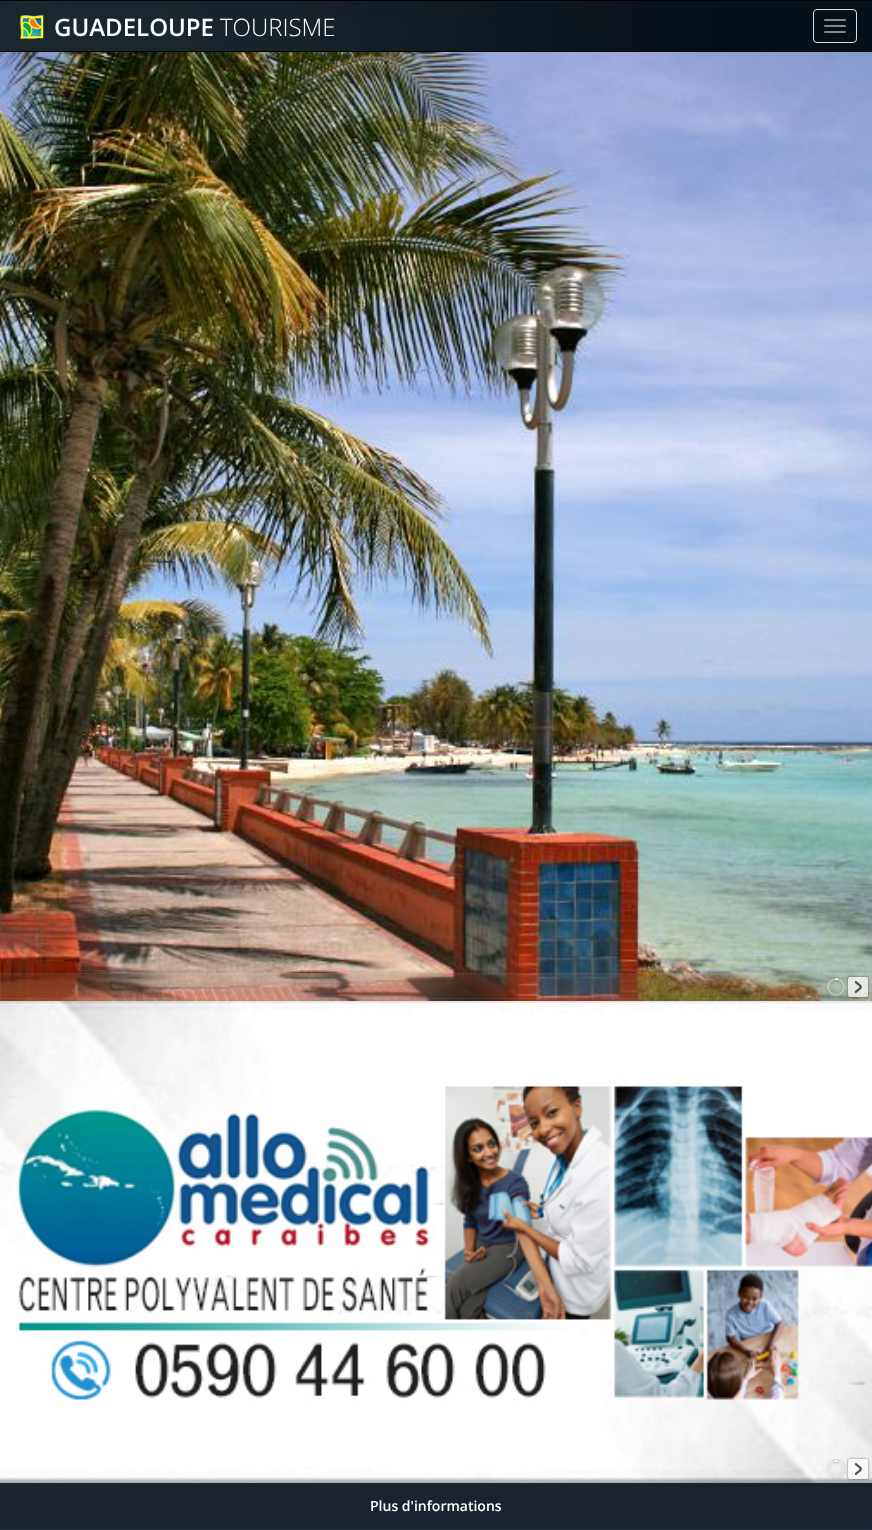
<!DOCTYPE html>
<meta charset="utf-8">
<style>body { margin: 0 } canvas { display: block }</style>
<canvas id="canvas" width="872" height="1530"></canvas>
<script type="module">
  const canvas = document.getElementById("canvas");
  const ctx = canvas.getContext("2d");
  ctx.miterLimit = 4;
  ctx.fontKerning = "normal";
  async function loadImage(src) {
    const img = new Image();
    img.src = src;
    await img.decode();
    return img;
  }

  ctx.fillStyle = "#253242";
  ctx.fillRect(0, 0, 872, 1530);
  ctx.fillStyle = "#061019";
  ctx.fillRect(0, 1, 872, 50);
  ctx.drawImage(await loadImage("img1.png"), 0, 1, 716, 50);
  ctx.fillStyle = "#000000";
  ctx.fillRect(0, 51, 872, 1);
  ctx.fillRect(0, 0, 872, 1);
  ctx.drawImage(await loadImage("img2.png"), 20, 15, 24, 24);
  ctx.font = "600 24px Open Sans";
  ctx.fillStyle = "#ffffff";
  ctx.fillText("GUADELOUPE", 54, 36);
  ctx.font = "300 24px Open Sans";
  ctx.fillText("TOURISME", 220, 36);
  ctx.beginPath();
  ctx.roundRect(813.5, 9.5, 43, 33, 3.5);
  ctx.strokeStyle = "#dddddd";
  ctx.stroke();
  ctx.fillStyle = "#888888";
  ctx.beginPath();
  ctx.roundRect(824, 19, 22, 2, 1);
  ctx.fill();
  ctx.beginPath();
  ctx.roundRect(824, 25, 22, 2, 1);
  ctx.fill();
  ctx.beginPath();
  ctx.roundRect(824, 31, 22, 2, 1);
  ctx.fill();
  ctx.drawImage(await loadImage("img3.png"), 0, 52, 872, 949);
  ctx.save();
  ctx.beginPath();
  ctx.rect(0, 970, 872, 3);
  ctx.clip();
  ctx.fillStyle = "rgba(0, 0, 0, 0.12)";
  ctx.filter = "blur(3px)";
  ctx.beginPath();
  ctx.rect(0, 973, 872, 28);
  ctx.fill();
  ctx.filter = "none";
  ctx.restore();
  ctx.drawImage(await loadImage("img4.png"), 0, 973, 872, 28);
  ctx.fillStyle = "rgba(255, 255, 255, 0.03)";
  ctx.fillRect(0, 973, 872, 28);
  ctx.strokeStyle = "rgba(255, 255, 255, 0.06)";
  ctx.strokeRect(0.5, 973.5, 869, 25);
  ctx.drawImage(await loadImage("img5.png"), 826, 977, 20, 20);
  ctx.save();
  ctx.beginPath();
  ctx.moveTo(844, 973);
  ctx.lineTo(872, 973);
  ctx.lineTo(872, 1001);
  ctx.lineTo(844, 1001);
  ctx.closePath();
  ctx.moveTo(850, 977);
  ctx.lineTo(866, 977);
  ctx.bezierCurveTo(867, 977, 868, 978, 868, 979);
  ctx.lineTo(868, 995);
  ctx.bezierCurveTo(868, 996, 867, 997, 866, 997);
  ctx.lineTo(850, 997);
  ctx.bezierCurveTo(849, 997, 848, 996, 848, 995);
  ctx.lineTo(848, 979);
  ctx.bezierCurveTo(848, 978, 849, 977, 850, 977);
  ctx.closePath();
  ctx.clip("evenodd");
  ctx.fillStyle = "rgba(0, 0, 0, 0.49)";
  ctx.filter = "blur(1px)";
  ctx.beginPath();
  ctx.roundRect(848, 977, 20, 20, 2);
  ctx.fill();
  ctx.filter = "none";
  ctx.restore();
  ctx.fillStyle = "rgba(255, 255, 255, 0.7)";
  ctx.beginPath();
  ctx.roundRect(848, 977, 20, 20, 2);
  ctx.fill();
  ctx.drawImage(await loadImage("img6.png"), 855, 981, 7, 12);
  ctx.drawImage(await loadImage("img7.png"), 0, 1001, 872, 482);
  ctx.drawImage(await loadImage("img8.png"), 826, 1459, 20, 20);
  ctx.save();
  ctx.beginPath();
  ctx.moveTo(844, 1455);
  ctx.lineTo(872, 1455);
  ctx.lineTo(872, 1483);
  ctx.lineTo(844, 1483);
  ctx.closePath();
  ctx.moveTo(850, 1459);
  ctx.lineTo(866, 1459);
  ctx.bezierCurveTo(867, 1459, 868, 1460, 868, 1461);
  ctx.lineTo(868, 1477);
  ctx.bezierCurveTo(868, 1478, 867, 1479, 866, 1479);
  ctx.lineTo(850, 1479);
  ctx.bezierCurveTo(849, 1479, 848, 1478, 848, 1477);
  ctx.lineTo(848, 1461);
  ctx.bezierCurveTo(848, 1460, 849, 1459, 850, 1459);
  ctx.closePath();
  ctx.clip("evenodd");
  ctx.fillStyle = "rgba(0, 0, 0, 0.49)";
  ctx.filter = "blur(1px)";
  ctx.beginPath();
  ctx.roundRect(848, 1459, 20, 20, 2);
  ctx.fill();
  ctx.filter = "none";
  ctx.restore();
  ctx.beginPath();
  ctx.roundRect(848, 1459, 20, 20, 2);
  ctx.fill();
  ctx.drawImage(await loadImage("img9.png"), 855, 1463, 7, 12);
  ctx.fillStyle = "#1a232e";
  ctx.fillRect(0, 1483, 872, 46);
  ctx.font = "600 14px Open Sans";
  ctx.fillStyle = "#ffffff";
  ctx.fillText("Plus d'informations", 370, 1511);
</script>
